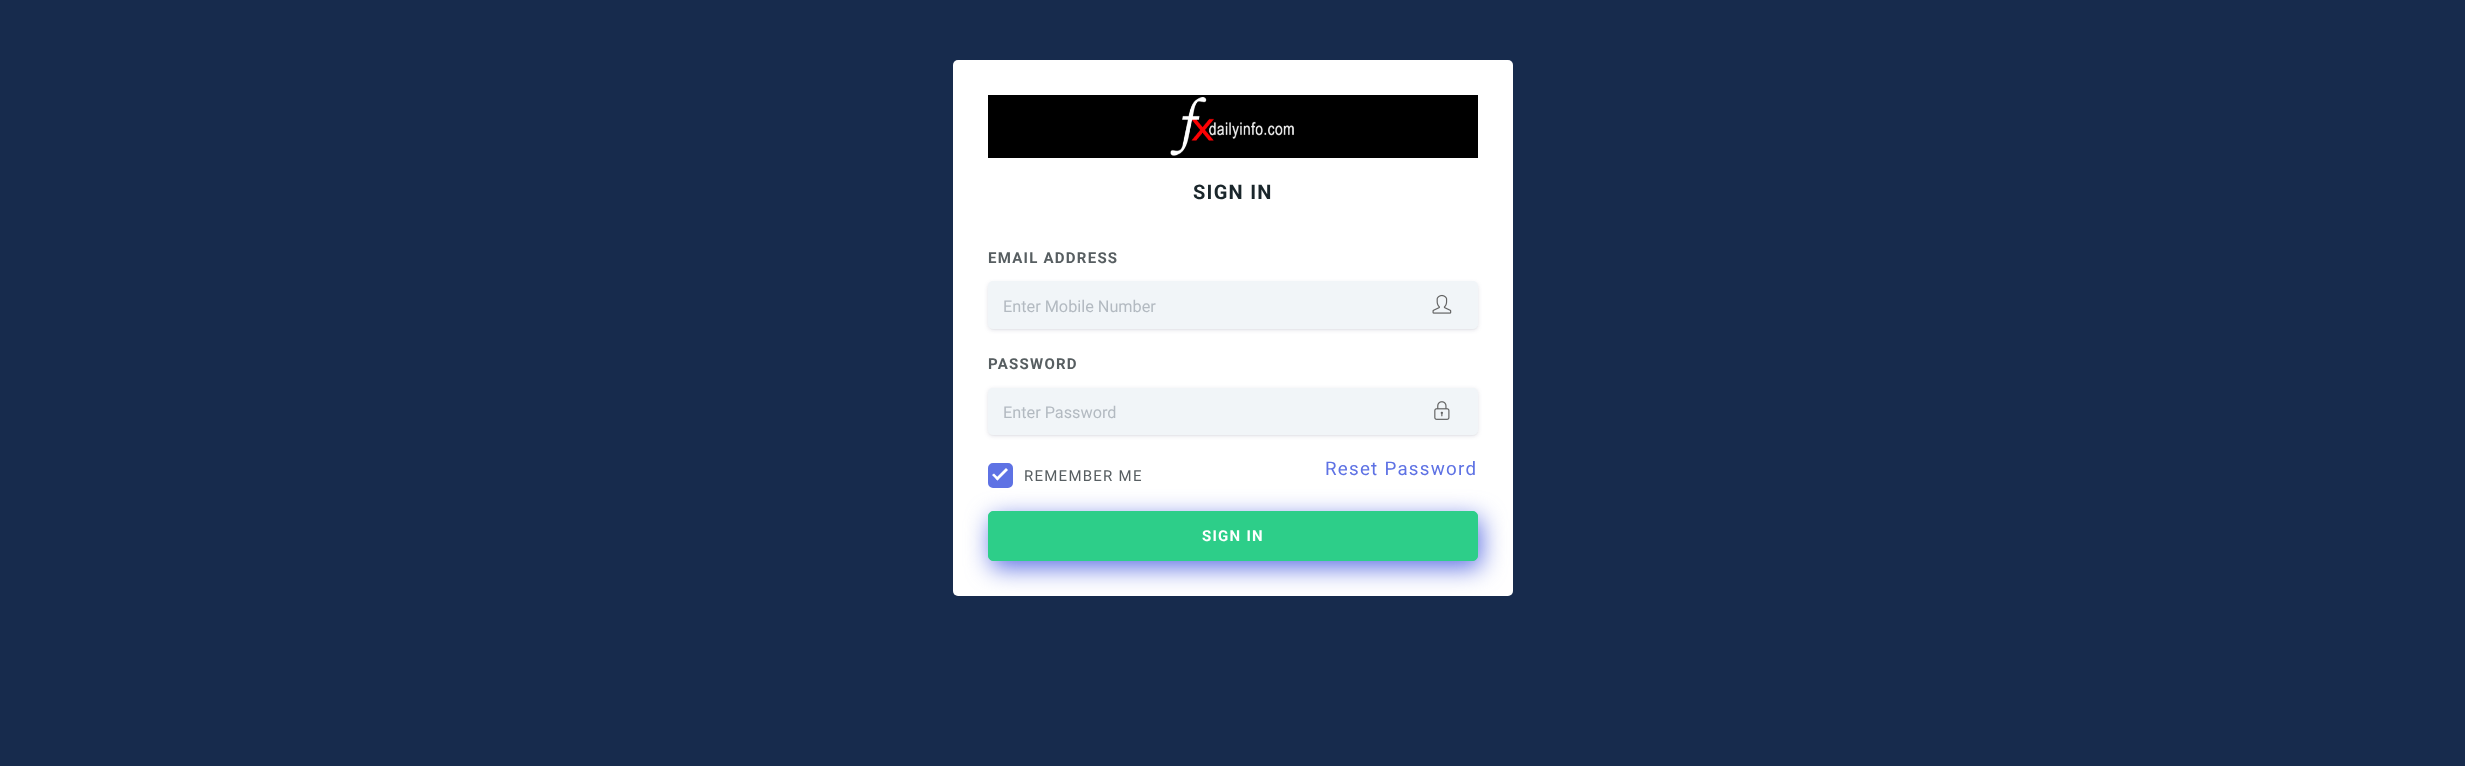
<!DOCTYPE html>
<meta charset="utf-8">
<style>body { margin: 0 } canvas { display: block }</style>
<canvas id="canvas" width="2465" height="766"></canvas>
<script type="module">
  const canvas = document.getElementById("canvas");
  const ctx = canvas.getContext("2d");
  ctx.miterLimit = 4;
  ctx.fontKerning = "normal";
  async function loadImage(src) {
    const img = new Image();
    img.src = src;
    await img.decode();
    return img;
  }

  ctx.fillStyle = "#172b4d";
  ctx.fillRect(0, 0, 2465, 766);
  ctx.fillStyle = "#ffffff";
  ctx.beginPath();
  ctx.roundRect(953, 60, 560, 536, 5);
  ctx.fill();
  ctx.fillStyle = "#000000";
  ctx.fillRect(988, 95, 490, 63);
  ctx.drawImage(await loadImage("img1.png"), 1170, 97, 124, 59);
  ctx.letterSpacing = "1.25px";
  ctx.font = "bold 20px Roboto";
  ctx.fillStyle = "#1a262b";
  ctx.fillText("SIGN IN", 1193, 199);
  ctx.font = "bold 15px Roboto";
  ctx.fillStyle = "#575e61";
  ctx.fillText("EMAIL ADDRESS", 988, 263);
  ctx.fillStyle = "#fafafa";
  ctx.beginPath();
  ctx.moveTo(988, 326);
  ctx.bezierCurveTo(989, 328, 991, 330, 993, 330);
  ctx.lineTo(1473, 330);
  ctx.bezierCurveTo(1476, 330, 1478, 328, 1478, 325);
  ctx.lineTo(1478, 288);
  ctx.lineTo(1477, 286);
  ctx.lineTo(1478, 324);
  ctx.bezierCurveTo(1478, 327, 1475, 329, 1472, 329);
  ctx.lineTo(992, 329);
  ctx.bezierCurveTo(991, 329, 989, 328, 988, 326);
  ctx.closePath();
  ctx.fill();
  ctx.fillStyle = "rgba(50, 50, 93, 0.15)";
  ctx.filter = "blur(2px)";
  ctx.beginPath();
  ctx.roundRect(988, 283, 490, 47, 5);
  ctx.fill();
  ctx.filter = "none";
  ctx.fillStyle = "#f1f5f8";
  ctx.beginPath();
  ctx.roundRect(988, 281, 490, 48, 5);
  ctx.fill();
  ctx.letterSpacing = "0px";
  ctx.font = "16.25px Roboto";
  ctx.fillStyle = "#b3bac1";
  ctx.fillText("Enter Mobile Number", 1003, 312);
  ctx.drawImage(await loadImage("img2.png"), 1432, 294, 20, 20);
  ctx.letterSpacing = "1.25px";
  ctx.font = "bold 15px Roboto";
  ctx.fillStyle = "#575e61";
  ctx.fillText("PASSWORD", 988, 369);
  ctx.fillStyle = "#fafafa";
  ctx.beginPath();
  ctx.moveTo(988, 433);
  ctx.bezierCurveTo(989, 435, 991, 436, 993, 436);
  ctx.lineTo(1473, 436);
  ctx.bezierCurveTo(1476, 436, 1478, 434, 1478, 431);
  ctx.lineTo(1478, 394);
  ctx.lineTo(1477, 392);
  ctx.lineTo(1478, 430);
  ctx.bezierCurveTo(1478, 433, 1475, 435, 1472, 435);
  ctx.lineTo(992, 435);
  ctx.bezierCurveTo(991, 435, 989, 434, 988, 433);
  ctx.closePath();
  ctx.fill();
  ctx.fillStyle = "rgba(50, 50, 93, 0.15)";
  ctx.filter = "blur(2px)";
  ctx.beginPath();
  ctx.roundRect(988, 389, 490, 47, 5);
  ctx.fill();
  ctx.filter = "none";
  ctx.fillStyle = "#f1f5f8";
  ctx.beginPath();
  ctx.roundRect(988, 388, 490, 47, 5);
  ctx.fill();
  ctx.letterSpacing = "0px";
  ctx.font = "16.25px Roboto";
  ctx.fillStyle = "#b3bac1";
  ctx.fillText("Enter Password", 1003, 418);
  ctx.drawImage(await loadImage("img3.png"), 1434, 401, 16, 19);
  ctx.fillStyle = "#5e72e4";
  ctx.beginPath();
  ctx.roundRect(989.5, 464.5, 22, 22, 3.5);
  ctx.fill();
  ctx.strokeStyle = "#5e72e4";
  ctx.lineWidth = 3;
  ctx.stroke();
  ctx.fillStyle = "#ffffff";
  ctx.beginPath();
  ctx.moveTo(1006, 468);
  ctx.lineTo(1008, 470);
  ctx.lineTo(997.5, 480.5);
  ctx.lineTo(995.5, 478.5);
  ctx.closePath();
  ctx.fill();
  ctx.beginPath();
  ctx.moveTo(994, 473.5);
  ctx.lineTo(999, 478.5);
  ctx.lineTo(997.5, 480.5);
  ctx.lineTo(992, 475);
  ctx.closePath();
  ctx.fill();
  ctx.letterSpacing = "1.25px";
  ctx.font = "15px Roboto";
  ctx.fillStyle = "#575e61";
  ctx.fillText("REMEMBER ME", 1024, 481);
  ctx.font = "18.75px Roboto";
  ctx.fillStyle = "#5e72e4";
  ctx.fillText("Reset Password", 1325, 475);
  ctx.fillStyle = "#5f72e3";
  ctx.filter = "blur(12.5px)";
  ctx.beginPath();
  ctx.roundRect(991, 518, 490, 50, 5);
  ctx.fill();
  ctx.filter = "none";
  ctx.fillStyle = "#2dce89";
  ctx.beginPath();
  ctx.roundRect(988.5, 511.5, 489, 49, 4.5);
  ctx.fill();
  ctx.strokeStyle = "#2dce89";
  ctx.lineWidth = 1;
  ctx.stroke();
  ctx.font = "bold 15px Roboto";
  ctx.fillStyle = "#ffffff";
  ctx.fillText("SIGN IN", 1202, 541);
</script>
